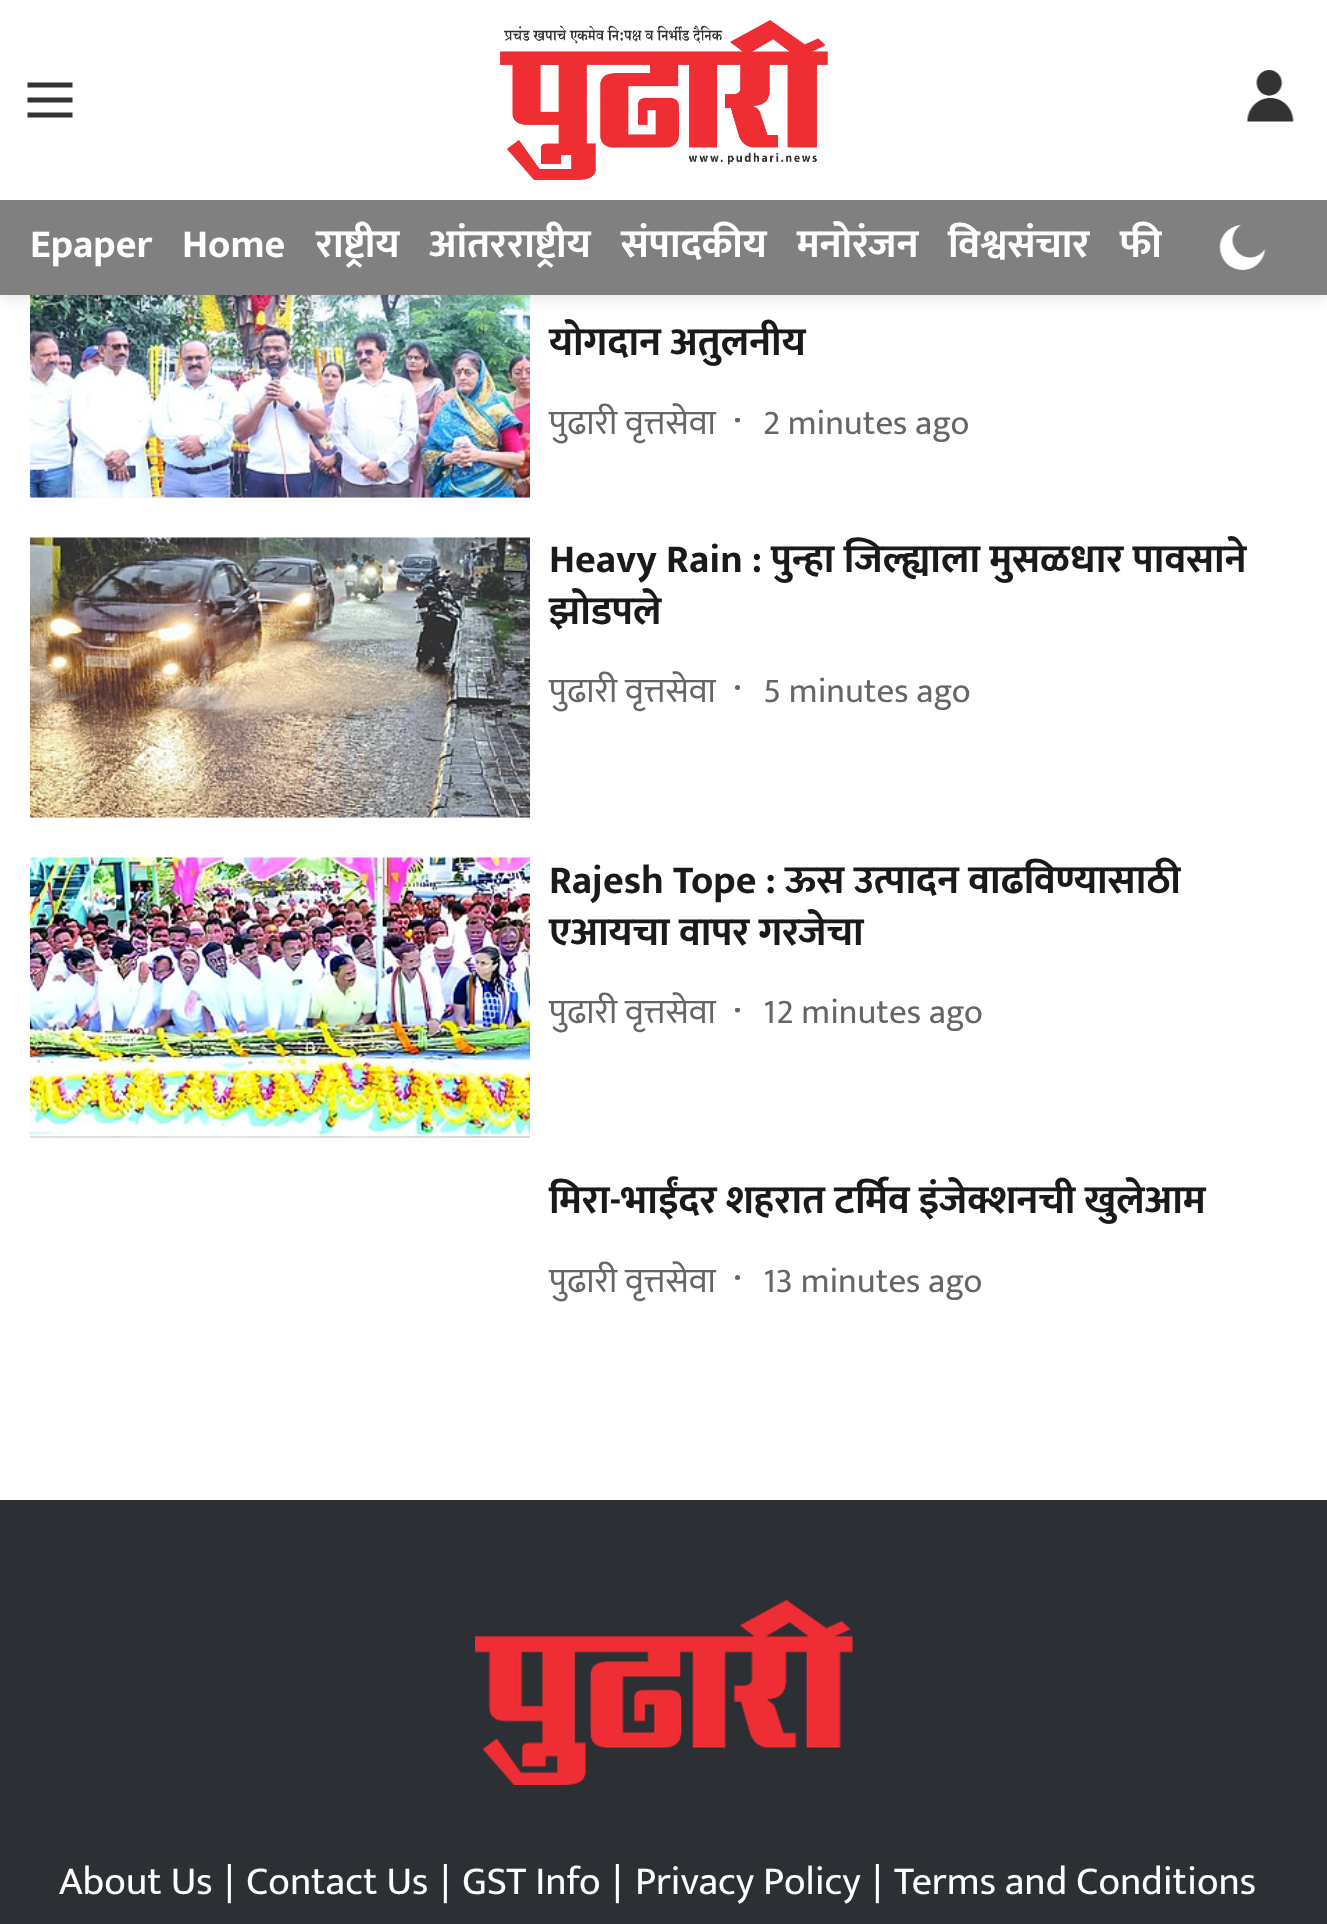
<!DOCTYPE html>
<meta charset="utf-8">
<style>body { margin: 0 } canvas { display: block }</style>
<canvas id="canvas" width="1327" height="1924"></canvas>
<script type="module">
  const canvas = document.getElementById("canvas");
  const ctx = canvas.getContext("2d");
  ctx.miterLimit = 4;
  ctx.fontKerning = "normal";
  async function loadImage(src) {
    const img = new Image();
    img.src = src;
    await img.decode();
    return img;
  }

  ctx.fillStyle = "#ffffff";
  ctx.fillRect(0, 0, 1327, 1924);
  ctx.fillStyle = "#f0f0f0";
  ctx.fillRect(30, 497, 500, 1);
  ctx.drawImage(await loadImage("img5.png"), 30, 295, 500, 203);
  ctx.fillStyle = "rgba(0, 0, 0, 0.1)";
  ctx.filter = "blur(7.5px)";
  ctx.beginPath();
  ctx.rect(0, 3, 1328, 295);
  ctx.fill();
  ctx.filter = "none";
  ctx.fillStyle = "#ffffff";
  ctx.fillRect(0, 0, 1327, 200);
  ctx.drawImage(await loadImage("img1.png"), 27, 82, 46, 36);
  ctx.drawImage(await loadImage("img2.png"), 500, 20, 328, 160);
  ctx.drawImage(await loadImage("img3.png"), 1247, 70, 47, 52);
  ctx.fillStyle = "#808080";
  ctx.fillRect(0, 200, 1327, 95);
  ctx.font = "bold 40px Mukta";
  ctx.fillStyle = "#ffffff";
  ctx.fillText("Epaper", 30, 257);
  ctx.fillText("Home", 182, 257);
  ctx.fillText("राष्ट्रीय", 316, 257);
  ctx.fillText("आंतरराष्ट्रीय", 429, 257);
  ctx.fillText("संपादकीय", 621, 257);
  ctx.fillText("मनोरंजन", 797, 257);
  ctx.fillText("विश्वसंचार", 948, 257);
  ctx.fillText("फी", 1120, 257);
  ctx.drawImage(await loadImage("img4.png"), 1219, 225, 47, 45);
  ctx.fillStyle = "#1a1a1a";
  ctx.fillText("योगदान अतुलनीय", 549, 355);
  ctx.font = "35px Mukta";
  ctx.fillStyle = "#666666";
  ctx.fillText("पुढारी वृत्तसेवा", 549, 434);
  ctx.save();
  ctx.beginPath();
  ctx.rect(735, 418, 8, 8);
  ctx.clip();
  ctx.beginPath();
  ctx.arc(737.5, 420, 2.5, 0, Math.PI * 2);
  ctx.fill();
  ctx.restore();
  ctx.fillText("2 minutes ago", 763, 434);
  ctx.fillStyle = "#f0f0f0";
  ctx.fillRect(30, 817, 500, 1);
  ctx.drawImage(await loadImage("img6.png"), 30, 537, 500, 281);
  ctx.font = "bold 40px Mukta";
  ctx.fillStyle = "#1a1a1a";
  ctx.fillText("Heavy Rain : पुन्हा जिल्ह्याला मुसळधार पावसाने", 549, 572);
  ctx.fillText("झोडपले", 549, 624);
  ctx.font = "35px Mukta";
  ctx.fillStyle = "#666666";
  ctx.fillText("पुढारी वृत्तसेवा", 549, 702);
  ctx.beginPath();
  ctx.arc(737.5, 687.5, 2.5, 0, Math.PI * 2);
  ctx.fill();
  ctx.fillText("5 minutes ago", 763, 702);
  ctx.fillStyle = "#f0f0f0";
  ctx.fillRect(30, 1137, 500, 1);
  ctx.drawImage(await loadImage("img7.png"), 30, 857, 500, 281);
  ctx.font = "bold 40px Mukta";
  ctx.fillStyle = "#1a1a1a";
  ctx.fillText("Rajesh Tope : ऊस उत्पादन वाढविण्यासाठी", 549, 893);
  ctx.fillText("एआयचा वापर गरजेचा", 549, 945);
  ctx.font = "35px Mukta";
  ctx.fillStyle = "#666666";
  ctx.fillText("पुढारी वृत्तसेवा", 549, 1023);
  ctx.save();
  ctx.beginPath();
  ctx.rect(735, 1008, 8, 8);
  ctx.clip();
  ctx.beginPath();
  ctx.arc(737.5, 1010, 2.5, 0, Math.PI * 2);
  ctx.fill();
  ctx.restore();
  ctx.fillText("12 minutes ago", 763, 1023);
  ctx.font = "bold 40px Mukta";
  ctx.fillStyle = "#1a1a1a";
  ctx.fillText("मिरा-भाईंदर शहरात टर्मिव इंजेक्शनची खुलेआम", 549, 1213);
  ctx.font = "35px Mukta";
  ctx.fillStyle = "#666666";
  ctx.fillText("पुढारी वृत्तसेवा", 549, 1292);
  ctx.beginPath();
  ctx.arc(737.5, 1277.5, 2.5, 0, Math.PI * 2);
  ctx.fill();
  ctx.fillText("13 minutes ago", 763, 1292);
  ctx.fillStyle = "#2c2f34";
  ctx.fillRect(0, 1500, 1327, 424);
  ctx.drawImage(await loadImage("img8.png"), 475, 1600, 378, 185);
  ctx.font = "40px Mukta";
  ctx.fillStyle = "#ffffff";
  ctx.fillText("About Us", 59, 1894);
  ctx.fillText("|", 225, 1894);
  ctx.fillText("Contact Us", 246, 1894);
  ctx.fillText("|", 441, 1894);
  ctx.fillText("GST Info", 462, 1894);
  ctx.fillText("|", 613, 1894);
  ctx.fillText("Privacy Policy", 635, 1894);
  ctx.fillText("|", 873, 1894);
  ctx.fillText("Terms and Conditions", 894, 1894);
</script>
